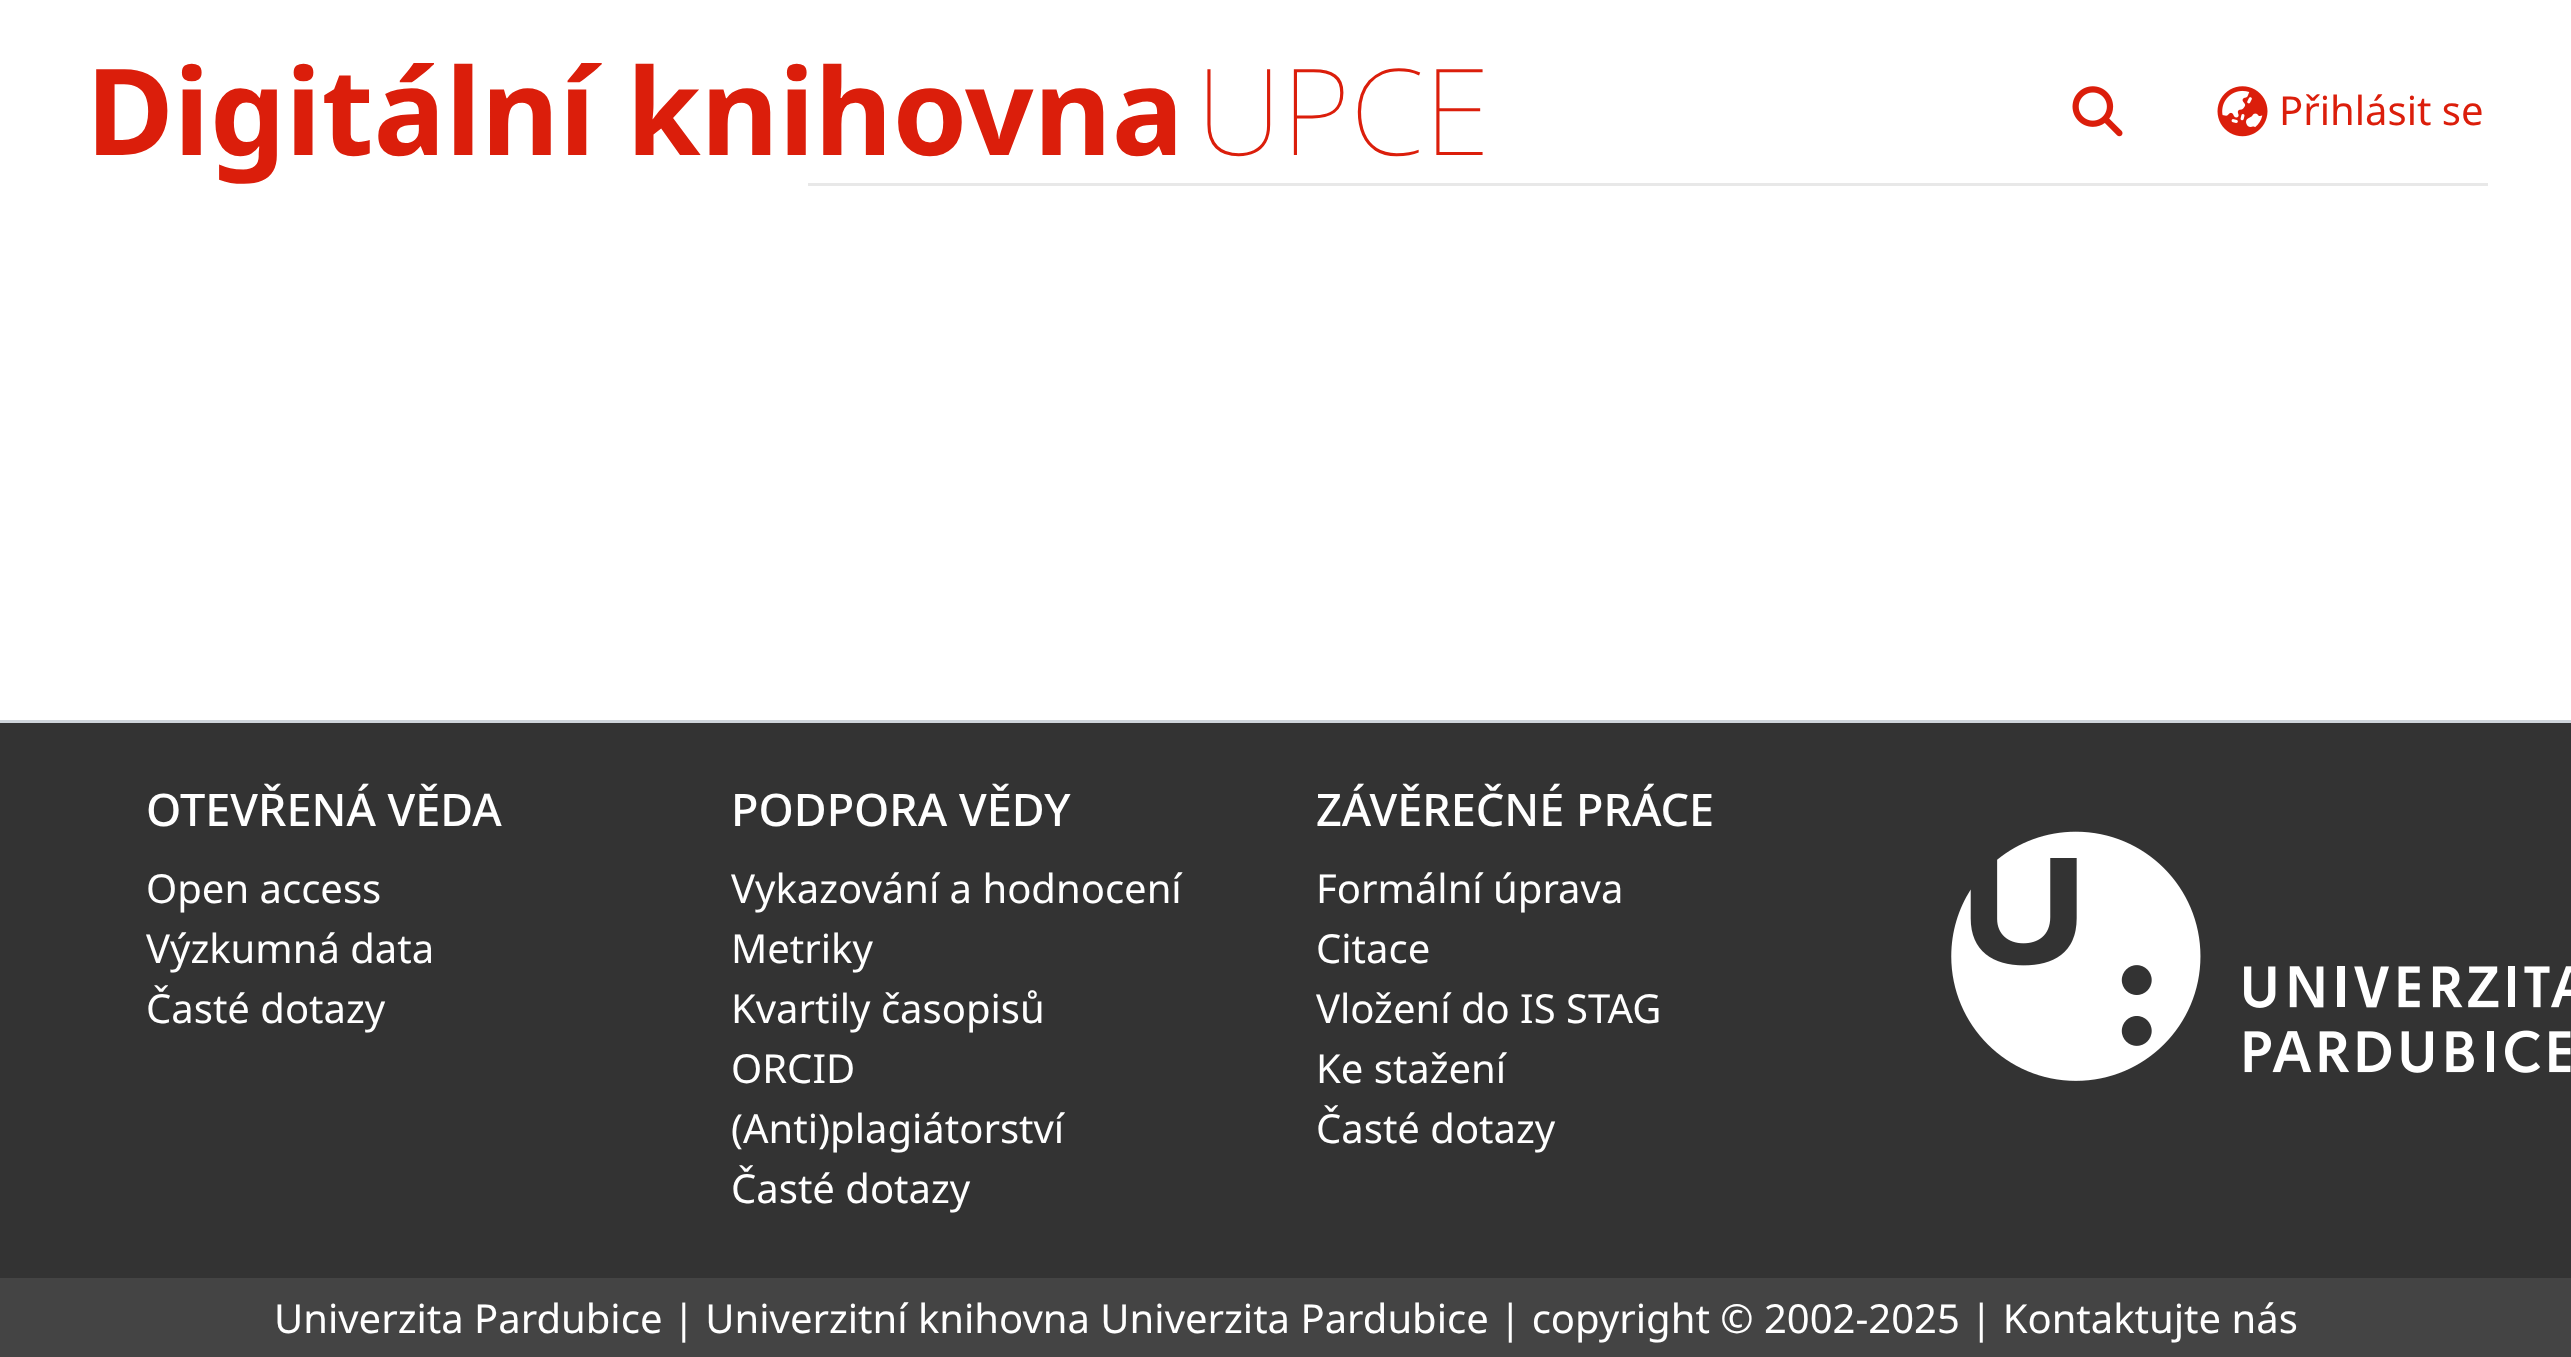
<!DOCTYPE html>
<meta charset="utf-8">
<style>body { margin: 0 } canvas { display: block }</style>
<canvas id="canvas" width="2571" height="1357"></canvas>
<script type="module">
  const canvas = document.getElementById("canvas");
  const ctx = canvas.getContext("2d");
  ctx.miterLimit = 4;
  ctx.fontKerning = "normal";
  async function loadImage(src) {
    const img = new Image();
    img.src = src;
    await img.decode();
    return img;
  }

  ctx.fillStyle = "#ffffff";
  ctx.fillRect(0, 0, 2571, 1357);
  ctx.font = "bold 120px Noto Sans";
  ctx.fillStyle = "#db1e0b";
  ctx.fillText("Digitální knihovna", 86, 155);
  ctx.font = "100 120px Noto Sans";
  ctx.fillText("UPCE", 1196, 155);
  ctx.drawImage(await loadImage("img1.png"), 2072, 86, 51, 51);
  ctx.drawImage(await loadImage("img2.png"), 2217, 86, 51, 51);
  ctx.font = "40px Noto Sans";
  ctx.fillText("Přihlásit se", 2279, 125);
  ctx.fillStyle = "#e8e8e8";
  ctx.fillRect(808, 183, 1680, 3);
  ctx.fillStyle = "#333333";
  ctx.fillRect(0, 723, 2571, 555);
  ctx.fillStyle = "#ced4da";
  ctx.fillRect(0, 720, 2571, 3);
  ctx.font = "500 45px Noto Sans";
  ctx.fillStyle = "#ffffff";
  ctx.fillText("OTEVŘENÁ VĚDA", 146, 826);
  ctx.font = "40px Noto Sans";
  ctx.fillText("Open access", 146, 903);
  ctx.fillText("Výzkumná data", 146, 963);
  ctx.fillText("Časté dotazy", 146, 1023);
  ctx.font = "500 45px Noto Sans";
  ctx.fillText("PODPORA VĚDY", 731, 826);
  ctx.font = "40px Noto Sans";
  ctx.fillText("Vykazování a hodnocení", 731, 903);
  ctx.fillText("Metriky", 731, 963);
  ctx.fillText("Kvartily časopisů", 731, 1023);
  ctx.fillText("ORCID", 731, 1083);
  ctx.fillText("(Anti)plagiátorství", 731, 1143);
  ctx.fillText("Časté dotazy", 731, 1203);
  ctx.font = "500 45px Noto Sans";
  ctx.fillText("ZÁVĚREČNÉ PRÁCE", 1316, 826);
  ctx.font = "40px Noto Sans";
  ctx.fillText("Formální úprava", 1316, 903);
  ctx.fillText("Citace", 1316, 963);
  ctx.fillText("Vložení do IS STAG", 1316, 1023);
  ctx.fillText("Ke stažení", 1316, 1083);
  ctx.fillText("Časté dotazy", 1316, 1143);
  ctx.drawImage(await loadImage("img3.png"), 1951, 831, 620, 250);
  ctx.fillStyle = "#444444";
  ctx.fillRect(0, 1278, 2571, 79);
  ctx.fillStyle = "#ffffff";
  ctx.fillText("Univerzita Pardubice | Univerzitní knihovna Univerzita Pardubice | copyright © 2002-2025 | Kontaktujte nás", 274, 1333);
</script>
